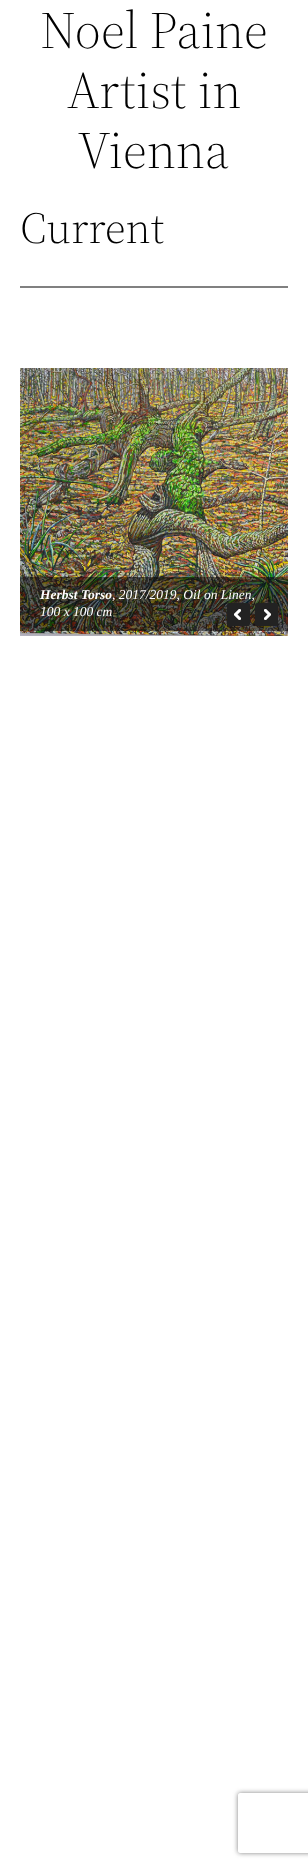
<!DOCTYPE html>
<meta charset="utf-8">
<style>body { margin: 0 } canvas { display: block }</style>
<canvas id="canvas" width="308" height="1867"></canvas>
<script type="module">
  const canvas = document.getElementById("canvas");
  const ctx = canvas.getContext("2d");
  ctx.miterLimit = 4;
  ctx.fontKerning = "normal";
  async function loadImage(src) {
    const img = new Image();
    img.src = src;
    await img.decode();
    return img;
  }

  ctx.fillStyle = "#ffffff";
  ctx.fillRect(0, 0, 308, 1867);
  ctx.font = "300 52px 'Source Serif 4'";
  ctx.fillStyle = "#000000";
  ctx.fillText("Noel Paine", 40, 48);
  ctx.fillText("Artist in", 67, 108);
  ctx.fillText("Vienna", 78, 168);
  ctx.font = "300 44px 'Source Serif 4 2'";
  ctx.fillText("Current", 20, 243);
  ctx.fillStyle = "#808080";
  ctx.fillRect(20, 286, 268, 2);
  ctx.drawImage(await loadImage("img1.png"), 20, 368, 268, 268);
  ctx.fillStyle = "rgba(0, 0, 0, 0.5)";
  ctx.fillRect(20, 577, 268, 54);
  ctx.font = "italic bold 13.5px Liberation Serif";
  ctx.fillStyle = "#ffffff";
  ctx.fillText("Herbst Torso", 40, 599);
  ctx.font = "italic 13.5px Liberation Serif";
  ctx.fillText(", 2017/2019, Oil on Linen,", 112, 599);
  ctx.fillText("100 x 100 cm", 40, 616);
  ctx.fillStyle = "#222222";
  ctx.beginPath();
  ctx.roundRect(227, 603, 23, 23, 2);
  ctx.fill();
  ctx.drawImage(await loadImage("img2.png"), 234, 609, 7, 11);
  ctx.beginPath();
  ctx.roundRect(255, 603, 23, 23, 2);
  ctx.fill();
  ctx.drawImage(await loadImage("img3.png"), 264, 609, 7, 11);
  ctx.save();
  ctx.beginPath();
  ctx.moveTo(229, 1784);
  ctx.lineTo(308, 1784);
  ctx.lineTo(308, 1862);
  ctx.lineTo(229, 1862);
  ctx.closePath();
  ctx.moveTo(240, 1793);
  ctx.lineTo(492, 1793);
  ctx.bezierCurveTo(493, 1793, 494, 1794, 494, 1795);
  ctx.lineTo(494, 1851);
  ctx.bezierCurveTo(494, 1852, 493, 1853, 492, 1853);
  ctx.lineTo(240, 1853);
  ctx.bezierCurveTo(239, 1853, 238, 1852, 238, 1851);
  ctx.lineTo(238, 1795);
  ctx.bezierCurveTo(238, 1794, 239, 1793, 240, 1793);
  ctx.closePath();
  ctx.clip("evenodd");
  ctx.fillStyle = "#808080";
  ctx.filter = "blur(2.5px)";
  ctx.beginPath();
  ctx.roundRect(238, 1793, 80, 60, 2);
  ctx.fill();
  ctx.filter = "none";
  ctx.restore();
</script>
